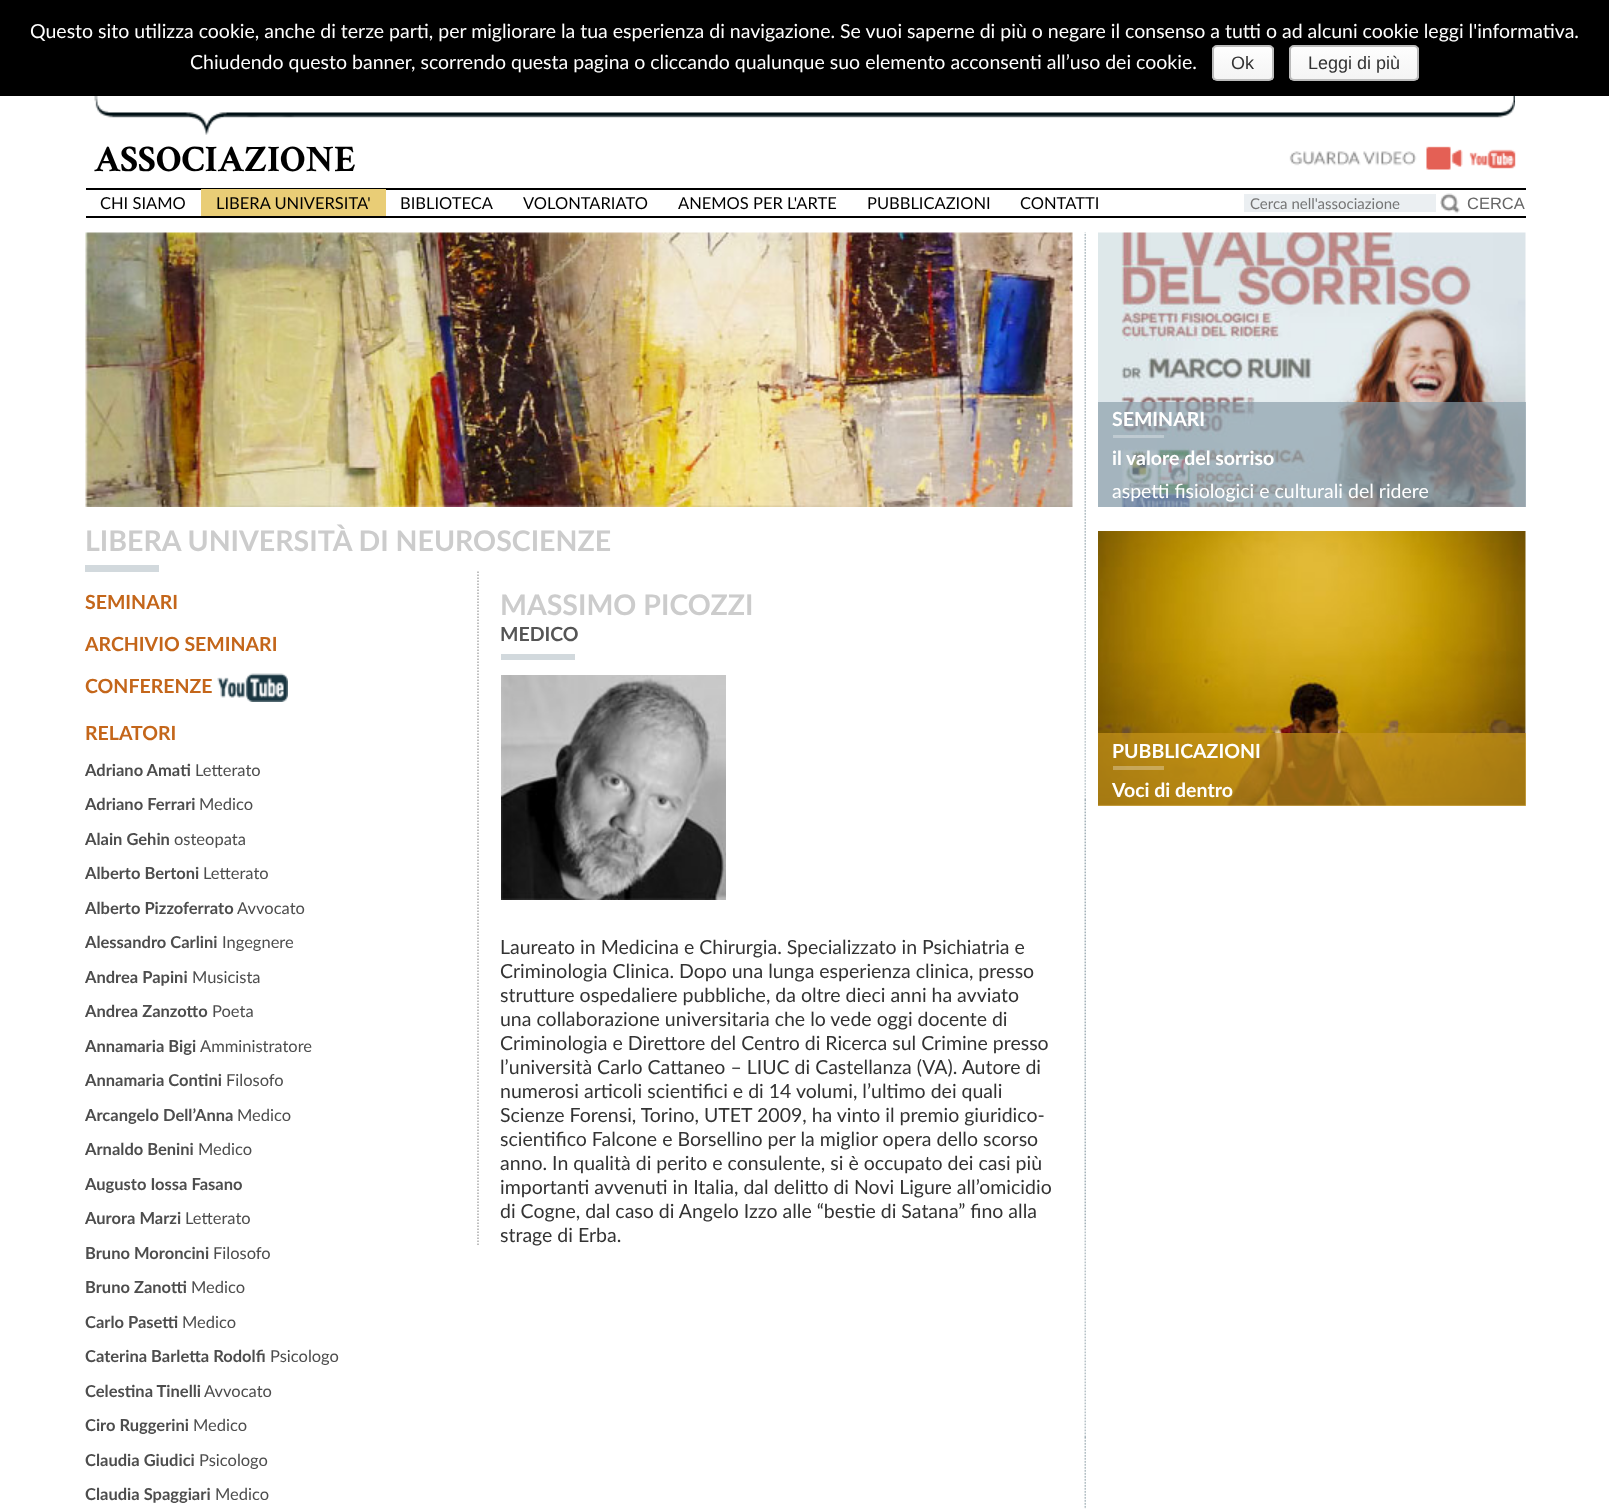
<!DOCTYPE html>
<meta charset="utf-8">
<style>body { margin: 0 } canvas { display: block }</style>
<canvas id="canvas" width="1609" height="1509"></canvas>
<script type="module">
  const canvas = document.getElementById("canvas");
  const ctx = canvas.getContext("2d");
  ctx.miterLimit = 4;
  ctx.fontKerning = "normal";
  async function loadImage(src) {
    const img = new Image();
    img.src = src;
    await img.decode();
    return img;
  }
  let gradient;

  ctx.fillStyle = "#ffffff";
  ctx.fillRect(0, 0, 1609, 1509);
  ctx.fillStyle = "#000000";
  ctx.fillRect(0, 0, 1609, 96);
  ctx.font = "19.5px Lato";
  ctx.fillStyle = "#ffffff";
  ctx.fillText("Questo sito utilizza cookie, anche di terze parti, per migliorare la tua esperienza di navigazione. Se vuoi saperne di più o negare il consenso a tutti o ad alcuni cookie leggi l'informativa.", 30, 38);
  ctx.fillText("Chiudendo questo banner, scorrendo questa pagina o cliccando qualunque suo elemento acconsenti all’uso dei cookie.", 190, 69);
  ctx.save();
  ctx.beginPath();
  ctx.roundRect(1212, 45, 62, 36, 5);
  ctx.clip();
  gradient = ctx.createLinearGradient(1243, 47, 1243, 80);
  gradient.addColorStop(0, "#fefefe");
  gradient.addColorStop(1, "#f4f4f4");
  ctx.fillStyle = gradient;
  ctx.fillRect(1212, 47, 62, 33);
  ctx.restore();
  ctx.beginPath();
  ctx.roundRect(1213, 46, 60, 34, 4);
  ctx.strokeStyle = "#bbbbbb";
  ctx.lineWidth = 2;
  ctx.stroke();
  ctx.font = "18px Liberation Sans";
  ctx.fillStyle = "#333333";
  ctx.fillText("Ok", 1231, 69);
  ctx.save();
  ctx.beginPath();
  ctx.roundRect(1289, 45, 130, 36, 5);
  ctx.clip();
  gradient = ctx.createLinearGradient(1354, 46, 1354, 80);
  gradient.addColorStop(0, "#fefefe");
  gradient.addColorStop(1, "#f4f4f4");
  ctx.fillStyle = gradient;
  ctx.fillRect(1289, 47, 130, 33);
  ctx.restore();
  ctx.beginPath();
  ctx.roundRect(1290, 46, 128, 34, 4);
  ctx.stroke();
  ctx.fillText("Leggi di più", 1308, 69);
  ctx.drawImage(await loadImage("img1.png"), 94, 96, 1421, 39);
  ctx.font = "bold 37.5px Crimson Text";
  ctx.fillStyle = "#000000";
  ctx.fillText("ASSOCIAZIONE", 94, 171);
  ctx.drawImage(await loadImage("img2.png"), 1289, 146, 227, 24);
  ctx.fillRect(86, 188, 1440, 2);
  ctx.fillRect(86, 216, 1440, 2);
  ctx.font = "16.5px Lato";
  ctx.fillText("CHI SIAMO", 100, 209);
  ctx.fillStyle = "#e9cd76";
  ctx.fillRect(201, 189, 185, 27);
  ctx.fillStyle = "#000000";
  ctx.fillText("LIBERA UNIVERSITA'", 216, 209);
  ctx.fillText("BIBLIOTECA", 400, 209);
  ctx.fillText("VOLONTARIATO", 523, 209);
  ctx.fillText("ANEMOS PER L'ARTE", 678, 209);
  ctx.fillText("PUBBLICAZIONI", 867, 209);
  ctx.fillText("CONTATTI", 1020, 209);
  ctx.fillStyle = "#ebeff2";
  ctx.fillRect(1244, 194, 192, 18);
  ctx.font = "15px Lato";
  ctx.fillStyle = "#757575";
  ctx.fillText("Cerca nell'associazione", 1250, 209);
  ctx.drawImage(await loadImage("img3.png"), 1440, 193, 20, 21);
  ctx.font = "16.5px Liberation Sans";
  ctx.fillStyle = "#666666";
  ctx.fillText("CERCA", 1467, 209);
  ctx.drawImage(await loadImage("img4.png"), 1084, 232, 2, 1277);
  ctx.drawImage(await loadImage("img5.png"), 85, 232, 988, 275);
  ctx.fillStyle = "#d2d9dd";
  ctx.fillRect(85, 565, 74, 7);
  ctx.font = "bold 28.5px Lato";
  ctx.fillStyle = "#cccccc";
  ctx.fillText("LIBERA UNIVERSITÀ DI NEUROSCIENZE", 85, 551);
  ctx.font = "bold 19.5px Lato";
  ctx.fillStyle = "#c4661a";
  ctx.fillText("SEMINARI", 85, 609);
  ctx.fillText("ARCHIVIO SEMINARI", 85, 651);
  ctx.fillText("CONFERENZE", 85, 693);
  ctx.drawImage(await loadImage("img6.png"), 217, 673, 71, 29);
  ctx.fillText("RELATORI", 85, 740);
  ctx.font = "bold 16.5px Lato";
  ctx.fillStyle = "#4d4d4d";
  ctx.fillText("Adriano Amati", 85, 776);
  ctx.font = "16.5px Lato";
  ctx.fillText("Letterato", 195, 776);
  ctx.font = "bold 16.5px Lato";
  ctx.fillText("Adriano Ferrari", 85, 810);
  ctx.font = "16.5px Lato";
  ctx.fillText("Medico", 199, 810);
  ctx.font = "bold 16.5px Lato";
  ctx.fillText("Alain Gehin", 85, 845);
  ctx.font = "16.5px Lato";
  ctx.fillText("osteopata", 174, 845);
  ctx.font = "bold 16.5px Lato";
  ctx.fillText("Alberto Bertoni", 85, 879);
  ctx.font = "16.5px Lato";
  ctx.fillText("Letterato", 203, 879);
  ctx.font = "bold 16.5px Lato";
  ctx.fillText("Alberto Pizzoferrato", 85, 914);
  ctx.font = "16.5px Lato";
  ctx.fillText("Avvocato", 237, 914);
  ctx.font = "bold 16.5px Lato";
  ctx.fillText("Alessandro Carlini", 85, 948);
  ctx.font = "16.5px Lato";
  ctx.fillText("Ingegnere", 222, 948);
  ctx.font = "bold 16.5px Lato";
  ctx.fillText("Andrea Papini", 85, 983);
  ctx.font = "16.5px Lato";
  ctx.fillText("Musicista", 192, 983);
  ctx.font = "bold 16.5px Lato";
  ctx.fillText("Andrea Zanzotto", 85, 1017);
  ctx.font = "16.5px Lato";
  ctx.fillText("Poeta", 212, 1017);
  ctx.font = "bold 16.5px Lato";
  ctx.fillText("Annamaria Bigi", 85, 1052);
  ctx.font = "16.5px Lato";
  ctx.fillText("Amministratore", 200, 1052);
  ctx.font = "bold 16.5px Lato";
  ctx.fillText("Annamaria Contini", 85, 1086);
  ctx.font = "16.5px Lato";
  ctx.fillText("Filosofo", 226, 1086);
  ctx.font = "bold 16.5px Lato";
  ctx.fillText("Arcangelo Dell’Anna", 85, 1121);
  ctx.font = "16.5px Lato";
  ctx.fillText("Medico", 237, 1121);
  ctx.font = "bold 16.5px Lato";
  ctx.fillText("Arnaldo Benini", 85, 1155);
  ctx.font = "16.5px Lato";
  ctx.fillText("Medico", 198, 1155);
  ctx.font = "bold 16.5px Lato";
  ctx.fillText("Augusto Iossa Fasano", 85, 1190);
  ctx.fillText("Aurora Marzi", 85, 1224);
  ctx.font = "16.5px Lato";
  ctx.fillText("Letterato", 185, 1224);
  ctx.font = "bold 16.5px Lato";
  ctx.fillText("Bruno Moroncini", 85, 1259);
  ctx.font = "16.5px Lato";
  ctx.fillText("Filosofo", 213, 1259);
  ctx.font = "bold 16.5px Lato";
  ctx.fillText("Bruno Zanotti", 85, 1293);
  ctx.font = "16.5px Lato";
  ctx.fillText("Medico", 191, 1293);
  ctx.font = "bold 16.5px Lato";
  ctx.fillText("Carlo Pasetti", 85, 1328);
  ctx.font = "16.5px Lato";
  ctx.fillText("Medico", 182, 1328);
  ctx.font = "bold 16.5px Lato";
  ctx.fillText("Caterina Barletta Rodolfi", 85, 1362);
  ctx.font = "16.5px Lato";
  ctx.fillText("Psicologo", 270, 1362);
  ctx.font = "bold 16.5px Lato";
  ctx.fillText("Celestina Tinelli", 85, 1397);
  ctx.font = "16.5px Lato";
  ctx.fillText("Avvocato", 204, 1397);
  ctx.font = "bold 16.5px Lato";
  ctx.fillText("Ciro Ruggerini", 85, 1431);
  ctx.font = "16.5px Lato";
  ctx.fillText("Medico", 193, 1431);
  ctx.font = "bold 16.5px Lato";
  ctx.fillText("Claudia Giudici", 85, 1466);
  ctx.font = "16.5px Lato";
  ctx.fillText("Psicologo", 199, 1466);
  ctx.font = "bold 16.5px Lato";
  ctx.fillText("Claudia Spaggiari", 85, 1500);
  ctx.font = "16.5px Lato";
  ctx.fillText("Medico", 215, 1500);
  ctx.beginPath();
  ctx.moveTo(478, 571.5);
  ctx.lineTo(478, 1246.5);
  ctx.strokeStyle = "#aaaaaa";
  ctx.lineWidth = 1.5;
  ctx.setLineDash([1.5, 1.5]);
  ctx.stroke();
  ctx.font = "bold 28.5px Lato";
  ctx.fillStyle = "#cccccc";
  ctx.fillText("MASSIMO PICOZZI", 500, 615);
  ctx.fillStyle = "#d2d9dd";
  ctx.fillRect(501, 654, 74, 6);
  ctx.font = "bold 19.5px Lato";
  ctx.fillStyle = "#555555";
  ctx.fillText("MEDICO", 500, 641);
  ctx.drawImage(await loadImage("img7.png"), 501, 675, 225, 225);
  ctx.font = "19.5px Lato";
  ctx.fillStyle = "#333333";
  ctx.fillText("Laureato in Medicina e Chirurgia. Specializzato in Psichiatria e", 500, 954);
  ctx.fillText("Criminologia Clinica. Dopo una lunga esperienza clinica, presso", 500, 978);
  ctx.fillText("strutture ospedaliere pubbliche, da oltre dieci anni ha avviato", 500, 1002);
  ctx.fillText("una collaborazione universitaria che lo vede oggi docente di", 500, 1026);
  ctx.fillText("Criminologia e Direttore del Centro di Ricerca sul Crimine presso", 500, 1050);
  ctx.fillText("l’università Carlo Cattaneo – LIUC di Castellanza (VA). Autore di", 500, 1074);
  ctx.fillText("numerosi articoli scientifici e di 14 volumi, l’ultimo dei quali", 500, 1098);
  ctx.fillText("Scienze Forensi, Torino, UTET 2009, ha vinto il premio giuridico-", 500, 1122);
  ctx.fillText("scientifico Falcone e Borsellino per la miglior opera dello scorso", 500, 1146);
  ctx.fillText("anno. In qualità di perito e consulente, si è occupato dei casi più", 500, 1170);
  ctx.fillText("importanti avvenuti in Italia, dal delitto di Novi Ligure all’omicidio", 500, 1194);
  ctx.fillText("di Cogne, dal caso di Angelo Izzo alle “bestie di Satana” fino alla", 500, 1218);
  ctx.fillText("strage di Erba.", 500, 1242);
  ctx.drawImage(await loadImage("img8.png"), 1098, 232, 428, 275);
  ctx.fillStyle = "rgba(138, 158, 170, 0.69)";
  ctx.fillRect(1098, 402, 428, 105);
  ctx.fillStyle = "rgba(255, 255, 255, 0.3)";
  ctx.fillRect(1113, 435, 51, 3);
  ctx.font = "bold 19.5px Lato";
  ctx.fillStyle = "#ffffff";
  ctx.fillText("SEMINARI", 1112, 426);
  ctx.fillText("il valore del sorriso", 1112, 465);
  ctx.font = "19.5px Lato";
  ctx.fillText("aspetti fisiologici e culturali del ridere", 1112, 498);
  ctx.drawImage(await loadImage("img9.png"), 1098, 531, 428, 275);
  ctx.fillStyle = "rgba(200, 149, 26, 0.69)";
  ctx.fillRect(1098, 733, 428, 73);
  ctx.fillStyle = "rgba(255, 255, 255, 0.3)";
  ctx.fillRect(1113, 766, 51, 4);
  ctx.font = "bold 19.5px Lato";
  ctx.fillStyle = "#ffffff";
  ctx.fillText("PUBBLICAZIONI", 1112, 758);
  ctx.fillText("Voci di dentro", 1112, 797);
</script>
